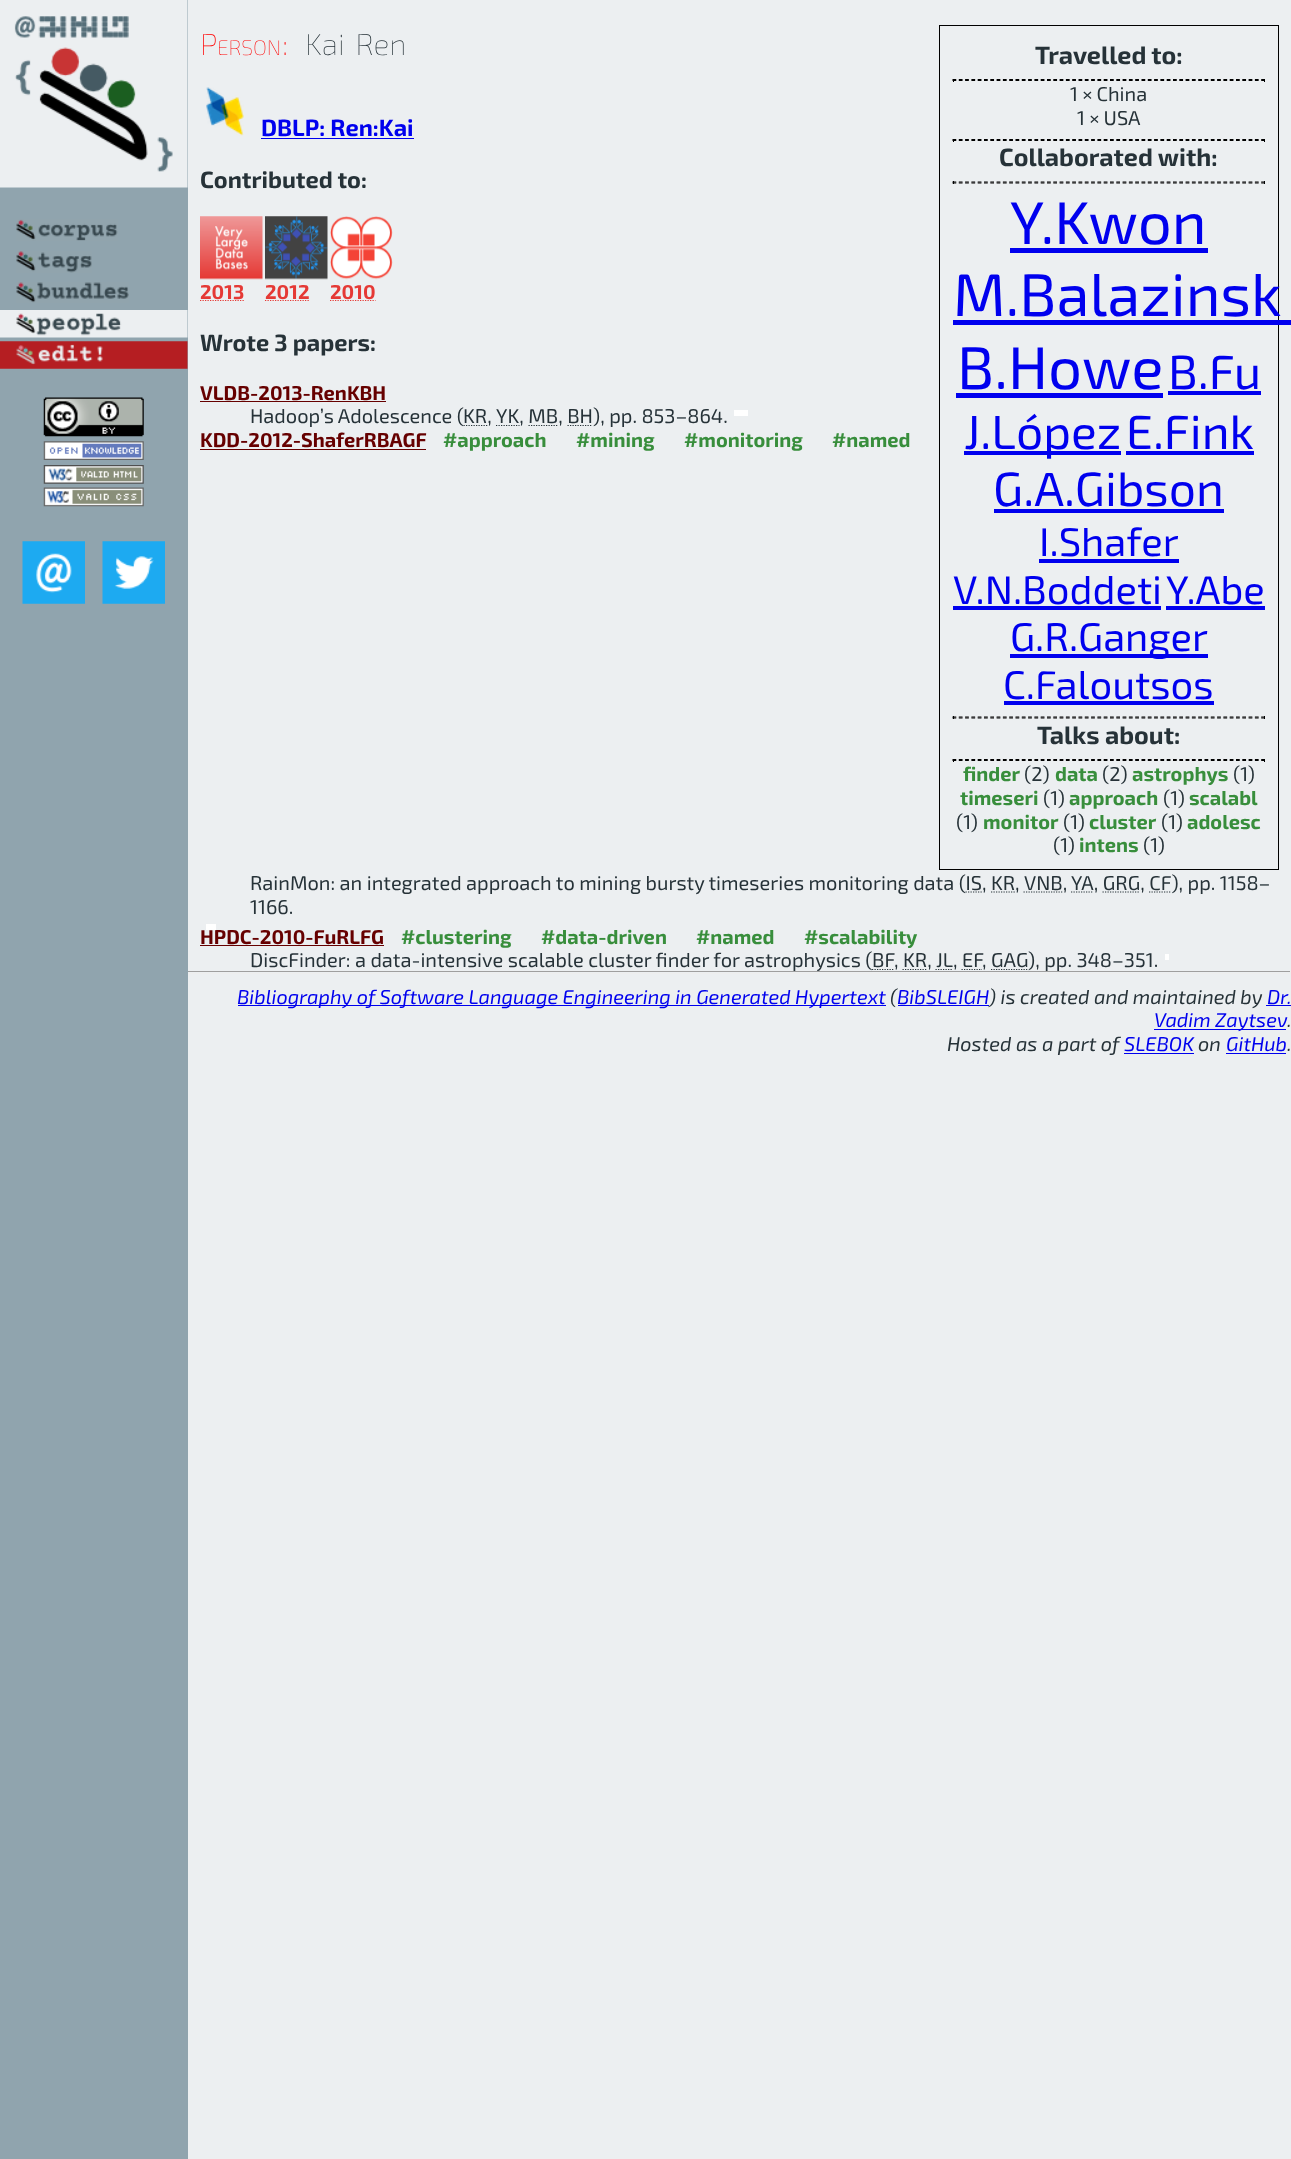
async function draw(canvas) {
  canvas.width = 1291
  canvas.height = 2159
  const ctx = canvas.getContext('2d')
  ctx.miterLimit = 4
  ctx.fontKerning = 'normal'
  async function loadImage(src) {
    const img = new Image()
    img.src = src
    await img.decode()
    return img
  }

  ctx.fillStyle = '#eceff1'
  ctx.fillRect(0, 0, 1291, 2159)
  ctx.fillStyle = '#90a4ae'
  ctx.fillRect(0, 0, 188, 2159)
  ctx.drawImage(await loadImage('image0.png'), 0, 0, 188, 188)
  ctx.drawImage(await loadImage('image1.png'), 16, 219, 102, 22)
  ctx.drawImage(await loadImage('image2.png'), 16, 251, 76, 22)
  ctx.drawImage(await loadImage('image3.png'), 16, 282, 113, 21)
  ctx.drawImage(await loadImage('image4.png'), 0, 310, 188, 28)
  ctx.drawImage(await loadImage('image5.png'), 0, 341, 188, 28)
  ctx.drawImage(await loadImage('image6.png'), 43, 397, 101, 40)
  ctx.drawImage(await loadImage('image7.png'), 43, 441, 101, 19)
  ctx.drawImage(await loadImage('image8.png'), 43, 465, 101, 19)
  ctx.drawImage(await loadImage('image9.png'), 43, 487, 101, 20)
  ctx.drawImage(await loadImage('image10.png'), 22, 541, 63, 63)
  ctx.drawImage(await loadImage('image11.png'), 102, 541, 63, 63)
  ctx.font = '100 30px "Exo 2"'
  ctx.fillStyle = '#f00'
  ctx.fillText('P', 200, 55)
  ctx.font = '100 21px "Exo 2"'
  ctx.fillText('ERSON', 217, 55)
  ctx.font = '100 30px "Exo 2"'
  ctx.fillText(':', 282, 55)
  ctx.wordSpacing = '4px'
  ctx.fillStyle = '#263238'
  ctx.fillText('Kai Ren', 305, 55)
  ctx.strokeStyle = '#000'
  ctx.strokeRect(939.5, 25.5, 339, 844)
  ctx.wordSpacing = '0px'
  ctx.font = 'bold 25px "Exo 2"'
  ctx.fillText('Travelled to:', 1035, 64)
  ctx.beginPath()
  ctx.moveTo(952.5, 79.5)
  ctx.lineTo(1265, 79.5)
  ctx.lineWidth = 1.2
  ctx.setLineDash([3.75, 2.55])
  ctx.stroke()
  ctx.fillStyle = '#000'
  ctx.fillRect(1264, 79, 1, 3)
  ctx.beginPath()
  ctx.moveTo(952.5, 80.5)
  ctx.lineTo(1265, 80.5)
  ctx.stroke()
  ctx.fillRect(953, 79, 1, 3)
  ctx.font = '20px "Exo 2"'
  ctx.fillStyle = '#263238'
  ctx.fillText('1 × China', 1070, 101)
  ctx.fillText('1 × USA', 1077, 125)
  ctx.beginPath()
  ctx.moveTo(952.5, 139.5)
  ctx.lineTo(1265, 139.5)
  ctx.stroke()
  ctx.fillStyle = '#000'
  ctx.fillRect(1264, 139, 1, 3)
  ctx.beginPath()
  ctx.moveTo(952.5, 140.5)
  ctx.lineTo(1265, 140.5)
  ctx.stroke()
  ctx.fillRect(953, 139, 1, 3)
  ctx.font = 'bold 25px "Exo 2"'
  ctx.fillStyle = '#263238'
  ctx.fillText('Collaborated with:', 999, 166)
  ctx.beginPath()
  ctx.moveTo(952.5, 182)
  ctx.lineTo(1265, 182)
  ctx.stroke()
  ctx.fillStyle = '#000'
  ctx.fillRect(1264, 181, 1, 3)
  ctx.beginPath()
  ctx.moveTo(952.5, 183)
  ctx.lineTo(1265, 183)
  ctx.stroke()
  ctx.fillRect(953, 181, 1, 3)
  ctx.font = '60px "Exo 2"'
  ctx.fillStyle = '#00e'
  ctx.fillText('Y.Kwon', 1010, 244)
  ctx.fillRect(1010, 248, 198, 5)
  ctx.fillText('M.Balazinsk', 953, 316)
  ctx.fillRect(953, 320, 338, 5)
  ctx.fillText('B.Howe', 957, 389)
  ctx.fillRect(956, 393, 207, 5)
  ctx.font = '48px "Exo 2"'
  ctx.fillText('B.Fu', 1168, 389)
  ctx.fillRect(1168, 391, 93, 4)
  ctx.fillRect(964, 451, 157, 4)
  ctx.fillText('J.López', 964, 449)
  ctx.fillText('E.Fink', 1126, 449)
  ctx.fillRect(1126, 451, 128, 4)
  ctx.fillText('G.A.Gibson', 993, 506)
  ctx.fillRect(994, 509, 230, 4)
  ctx.font = '40px "Exo 2"'
  ctx.fillText('I.Shafer', 1039, 556)
  ctx.fillRect(1039, 559, 140, 4)
  ctx.fillText('V.N.Boddeti', 953, 604)
  ctx.fillRect(953, 606, 208, 4)
  ctx.fillText('Y.Abe', 1166, 604)
  ctx.fillRect(1166, 606, 99, 4)
  ctx.fillRect(1010, 654, 198, 4)
  ctx.fillText('G.R.Ganger', 1010, 651)
  ctx.fillText('C.Faloutsos', 1003, 699)
  ctx.fillRect(1004, 701, 210, 4)
  ctx.beginPath()
  ctx.moveTo(952.5, 717)
  ctx.lineTo(1265, 717)
  ctx.stroke()
  ctx.fillStyle = '#000'
  ctx.fillRect(1264, 716, 1, 3)
  ctx.beginPath()
  ctx.moveTo(952.5, 718)
  ctx.lineTo(1265, 718)
  ctx.stroke()
  ctx.fillRect(953, 716, 1, 3)
  ctx.font = 'bold 25px "Exo 2"'
  ctx.fillStyle = '#263238'
  ctx.fillText('Talks about:', 1037, 744)
  ctx.beginPath()
  ctx.moveTo(952.5, 759.5)
  ctx.lineTo(1265, 759.5)
  ctx.stroke()
  ctx.fillStyle = '#000'
  ctx.fillRect(1264, 759, 1, 3)
  ctx.beginPath()
  ctx.moveTo(952.5, 760.5)
  ctx.lineTo(1265, 760.5)
  ctx.stroke()
  ctx.fillRect(953, 759, 1, 3)
  ctx.font = 'bold 20px "Exo 2"'
  ctx.fillStyle = '#388e3c'
  ctx.fillText('finder', 963, 781)
  ctx.font = '20px "Exo 2"'
  ctx.fillStyle = '#263238'
  ctx.fillText('(2)', 1024, 781)
  ctx.font = 'bold 20px "Exo 2"'
  ctx.fillStyle = '#388e3c'
  ctx.fillText('data', 1055, 781)
  ctx.font = '20px "Exo 2"'
  ctx.fillStyle = '#263238'
  ctx.fillText('(2)', 1102, 781)
  ctx.font = 'bold 20px "Exo 2"'
  ctx.fillStyle = '#388e3c'
  ctx.fillText('astrophys', 1132, 781)
  ctx.font = '20px "Exo 2"'
  ctx.fillStyle = '#263238'
  ctx.fillText('(1)', 1233, 781)
  ctx.font = 'bold 20px "Exo 2"'
  ctx.fillStyle = '#388e3c'
  ctx.fillText('timeseri', 960, 805)
  ctx.font = '20px "Exo 2"'
  ctx.fillStyle = '#263238'
  ctx.fillText('(1)', 1043, 805)
  ctx.font = 'bold 20px "Exo 2"'
  ctx.fillStyle = '#388e3c'
  ctx.fillText('approach', 1069, 805)
  ctx.font = '20px "Exo 2"'
  ctx.fillStyle = '#263238'
  ctx.fillText('(1)', 1163, 805)
  ctx.font = 'bold 20px "Exo 2"'
  ctx.fillStyle = '#388e3c'
  ctx.fillText('scalabl', 1189, 805)
  ctx.font = '20px "Exo 2"'
  ctx.fillStyle = '#263238'
  ctx.fillText('(1)', 956, 829)
  ctx.font = 'bold 20px "Exo 2"'
  ctx.fillStyle = '#388e3c'
  ctx.fillText('monitor', 983, 829)
  ctx.font = '20px "Exo 2"'
  ctx.fillStyle = '#263238'
  ctx.fillText('(1)', 1063, 829)
  ctx.font = 'bold 20px "Exo 2"'
  ctx.fillStyle = '#388e3c'
  ctx.fillText('cluster', 1089, 829)
  ctx.font = '20px "Exo 2"'
  ctx.fillStyle = '#263238'
  ctx.fillText('(1)', 1161, 829)
  ctx.font = 'bold 20px "Exo 2"'
  ctx.fillStyle = '#388e3c'
  ctx.fillText('adolesc', 1187, 829)
  ctx.font = '20px "Exo 2"'
  ctx.fillStyle = '#263238'
  ctx.fillText('(1)', 1053, 852)
  ctx.font = 'bold 20px "Exo 2"'
  ctx.fillStyle = '#388e3c'
  ctx.fillText('intens', 1079, 852)
  ctx.font = '20px "Exo 2"'
  ctx.fillStyle = '#263238'
  ctx.fillText('(1)', 1143, 852)
  ctx.drawImage(await loadImage('image12.png'), 206, 87, 38, 49)
  ctx.font = 'bold 23.5px "Exo 2"'
  ctx.fillStyle = '#00e'
  ctx.fillText('DBLP: Ren:Kai', 261, 136)
  ctx.fillRect(261, 138, 153, 1)
  ctx.fillStyle = '#263238'
  ctx.fillText('Contributed to:', 200, 188)
  ctx.drawImage(await loadImage('image13.png'), 200, 216, 63, 64)
  ctx.beginPath()
  ctx.moveTo(200, 300.5)
  ctx.lineTo(244, 300.5)
  ctx.strokeStyle = '#e53935'
  ctx.setLineDash([1.25, 1.25])
  ctx.stroke()
  ctx.font = 'bold 20px "Exo 2"'
  ctx.fillStyle = '#e53935'
  ctx.fillText('2013', 200, 299)
  ctx.drawImage(await loadImage('image14.png'), 265, 216, 63, 64)
  ctx.beginPath()
  ctx.moveTo(265, 300.5)
  ctx.lineTo(309.5, 300.5)
  ctx.stroke()
  ctx.fillText('2012', 265, 299)
  ctx.drawImage(await loadImage('image15.png'), 330, 216, 63, 64)
  ctx.beginPath()
  ctx.moveTo(330, 300.5)
  ctx.lineTo(375.5, 300.5)
  ctx.stroke()
  ctx.fillText('2010', 330, 299)
  ctx.font = 'bold 23.5px "Exo 2"'
  ctx.fillStyle = '#263238'
  ctx.fillText('Wrote 3 papers:', 200, 351)
  ctx.font = 'bold 20px "Exo 2"'
  ctx.fillStyle = '#600'
  ctx.fillText('VLDB-2013-RenKBH', 200, 400)
  ctx.fillRect(200, 401, 186, 1)
  ctx.font = '20px "Exo 2"'
  ctx.fillStyle = '#263238'
  ctx.fillText('Hadoop’s Adolescence (', 250, 423)
  ctx.beginPath()
  ctx.moveTo(463.5, 425.5)
  ctx.lineTo(487.5, 425.5)
  ctx.strokeStyle = '#263238'
  ctx.stroke()
  ctx.fillText('KR,', 463, 423)
  ctx.beginPath()
  ctx.moveTo(496, 425.5)
  ctx.lineTo(519.5, 425.5)
  ctx.stroke()
  ctx.fillText('YK, MB, BH', 496, 423)
  ctx.fillText('), pp. 853–864.', 593, 423)
  ctx.beginPath()
  ctx.moveTo(528.5, 425.5)
  ctx.lineTo(558.5, 425.5)
  ctx.stroke()
  ctx.beginPath()
  ctx.moveTo(567.5, 425.5)
  ctx.lineTo(592.5, 425.5)
  ctx.stroke()
  ctx.fillStyle = '#fff'
  ctx.fillRect(734, 410, 14, 6)
  ctx.font = 'bold 20px "Exo 2"'
  ctx.fillStyle = '#600'
  ctx.fillText('KDD-2012-ShaferRBAGF', 200, 447)
  ctx.fillRect(200, 449, 226, 1)
  ctx.fillStyle = '#388e3c'
  ctx.fillText('#approach', 443, 447)
  ctx.fillText('#mining', 576, 447)
  ctx.fillText('#monitoring', 684, 447)
  ctx.fillText('#named', 832, 447)
  ctx.font = '20px "Exo 2"'
  ctx.fillStyle = '#263238'
  ctx.fillText('RainMon: an integrated approach to mining bursty timeseries monitoring data (IS, KR,', 250, 890)
  ctx.beginPath()
  ctx.moveTo(1023.5, 892)
  ctx.lineTo(1062.5, 892)
  ctx.stroke()
  ctx.fillText('VNB,', 1024, 890)
  ctx.beginPath()
  ctx.moveTo(1071, 892)
  ctx.lineTo(1093.5, 892)
  ctx.stroke()
  ctx.fillText('YA, GRG, CF), pp. 1158–', 1071, 890)
  ctx.beginPath()
  ctx.moveTo(965.5, 892)
  ctx.lineTo(982, 892)
  ctx.moveTo(991, 892)
  ctx.lineTo(1015, 892)
  ctx.stroke()
  ctx.beginPath()
  ctx.moveTo(1102.5, 892)
  ctx.lineTo(1140, 892)
  ctx.stroke()
  ctx.beginPath()
  ctx.moveTo(1149, 892)
  ctx.lineTo(1171.5, 892)
  ctx.stroke()
  ctx.fillText('1166.', 250, 914)
  ctx.font = 'bold 20px "Exo 2"'
  ctx.fillStyle = '#600'
  ctx.fillText('HPDC-2010-FuRLFG', 200, 944)
  ctx.fillStyle = '#fff'
  ctx.fillRect(206, 924, 10, 6)
  ctx.fillStyle = '#600'
  ctx.fillRect(200, 945, 184, 1)
  ctx.fillStyle = '#388e3c'
  ctx.fillText('#clustering', 401, 944)
  ctx.fillText('#data-driven', 541, 944)
  ctx.fillText('#named', 696, 944)
  ctx.fillText('#scalability', 804, 944)
  ctx.font = '20px "Exo 2"'
  ctx.fillStyle = '#263238'
  ctx.fillText('DiscFinder: a data-intensive scalable cluster finder for astrophysics (BF', 250, 967)
  ctx.fillText(', KR,', 894, 967)
  ctx.beginPath()
  ctx.moveTo(902.5, 969.5)
  ctx.lineTo(927, 969.5)
  ctx.moveTo(935.5, 969.5)
  ctx.lineTo(952.5, 969.5)
  ctx.stroke()
  ctx.fillText('JL, EF', 936, 967)
  ctx.fillText(', GAG', 982, 967)
  ctx.fillText('), pp. 348–351.', 1028, 967)
  ctx.beginPath()
  ctx.moveTo(872, 969.5)
  ctx.lineTo(893.5, 969.5)
  ctx.stroke()
  ctx.beginPath()
  ctx.moveTo(961.5, 969.5)
  ctx.lineTo(982, 969.5)
  ctx.stroke()
  ctx.beginPath()
  ctx.moveTo(991, 969.5)
  ctx.lineTo(1028, 969.5)
  ctx.stroke()
  ctx.fillStyle = '#fff'
  ctx.fillRect(1165, 954, 4, 6)
  ctx.fillStyle = '#9f9f9f'
  ctx.fillRect(188, 971, 1103, 1)
  ctx.fillStyle = '#eee'
  ctx.fillRect(1290, 971, 1, 3)
  ctx.fillRect(188, 973, 1103, 1)
  ctx.fillStyle = '#00e'
  ctx.fillRect(238, 1005, 648, 1)
  ctx.font = 'italic 20px "Exo 2"'
  ctx.fillText('Bibliography of Software Language Engineering in Generated Hypertext', 237, 1004)
  ctx.fillStyle = '#263238'
  ctx.fillText('(', 890, 1004)
  ctx.fillStyle = '#00e'
  ctx.fillText('BibSLEIGH', 897, 1004)
  ctx.fillRect(898, 1005, 91, 1)
  ctx.fillStyle = '#263238'
  ctx.fillText(') is created and maintained by', 989, 1004)
  ctx.fillStyle = '#00e'
  ctx.fillText('Dr.', 1267, 1004)
  ctx.fillRect(1266, 1005, 25, 1)
  ctx.fillRect(1154, 1029, 132, 1)
  ctx.fillText('Vadim Zaytsev', 1154, 1027)
  ctx.fillStyle = '#263238'
  ctx.fillText('.', 1287, 1027)
  ctx.fillText('Hosted as a part of', 947, 1051)
  ctx.fillStyle = '#00e'
  ctx.fillRect(1124, 1053, 70, 1)
  ctx.fillText('SLEBOK', 1124, 1051)
  ctx.fillStyle = '#263238'
  ctx.fillText('on', 1198, 1051)
  ctx.fillStyle = '#00e'
  ctx.fillText('GitHub', 1226, 1051)
  ctx.fillStyle = '#263238'
  ctx.fillText('.', 1287, 1051)
  ctx.fillStyle = '#00e'
  ctx.fillRect(1226, 1053, 60, 1)
}

draw(document.querySelector('canvas'))
